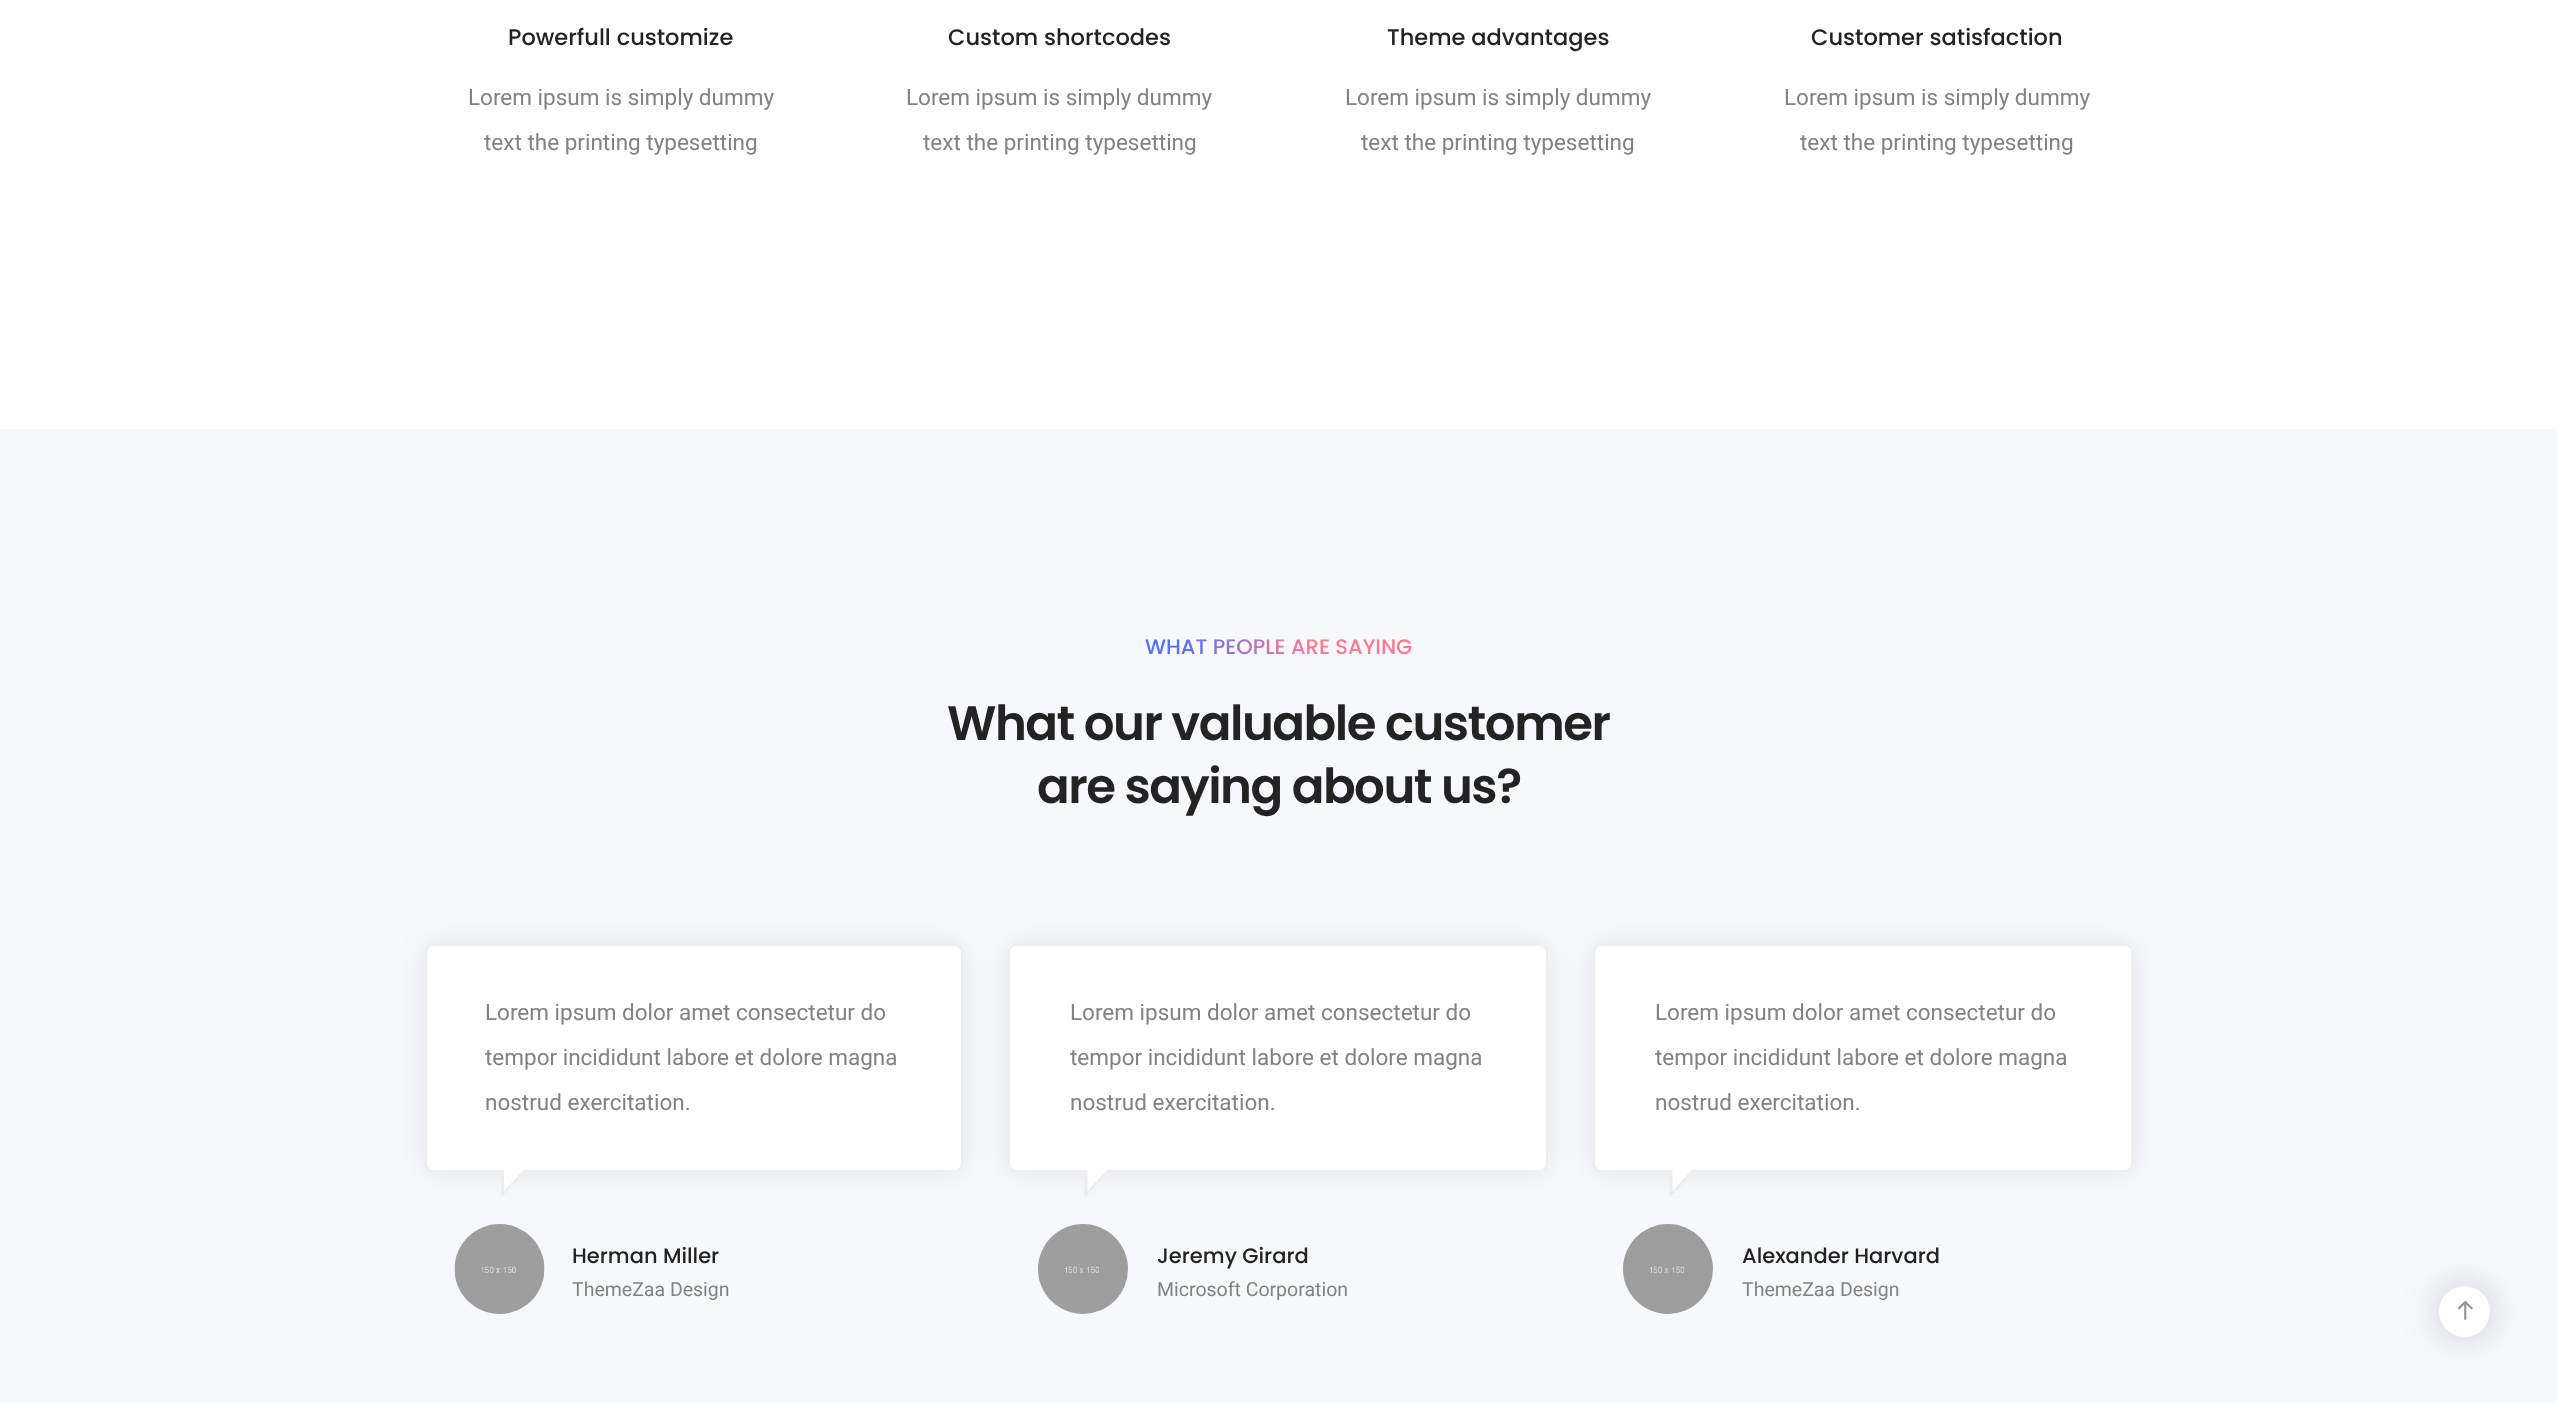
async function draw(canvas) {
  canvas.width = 2557
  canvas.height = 1403
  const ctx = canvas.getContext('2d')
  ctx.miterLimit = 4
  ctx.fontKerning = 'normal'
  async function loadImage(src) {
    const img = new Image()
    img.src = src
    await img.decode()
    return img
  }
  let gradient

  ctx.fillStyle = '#fff'
  ctx.fillRect(0, 0, 2557, 1403)
  ctx.font = '500 22.5px Poppins'
  ctx.fillStyle = '#232323'
  ctx.fillText('Powerfull customize', 508, 45)
  ctx.font = '22.5px Roboto'
  ctx.fillStyle = '#828282'
  ctx.fillText('Lorem ipsum is simply dummy', 468, 105)
  ctx.fillText('text the printing typesetting', 484, 150)
  ctx.font = '500 22.5px Poppins'
  ctx.fillStyle = '#232323'
  ctx.fillText('Custom shortcodes', 948, 45)
  ctx.font = '22.5px Roboto'
  ctx.fillStyle = '#828282'
  ctx.fillText('Lorem ipsum is simply dummy', 906, 105)
  ctx.fillText('text the printing typesetting', 923, 150)
  ctx.font = '500 22.5px Poppins'
  ctx.fillStyle = '#232323'
  ctx.fillText('Theme advantages', 1387, 45)
  ctx.font = '22.5px Roboto'
  ctx.fillStyle = '#828282'
  ctx.fillText('Lorem ipsum is simply dummy', 1345, 105)
  ctx.fillText('text the printing typesetting', 1361, 150)
  ctx.font = '500 22.5px Poppins'
  ctx.fillStyle = '#232323'
  ctx.fillText('Customer satisfaction', 1811, 45)
  ctx.font = '22.5px Roboto'
  ctx.fillStyle = '#828282'
  ctx.fillText('Lorem ipsum is simply dummy', 1784, 105)
  ctx.fillText('text the printing typesetting', 1800, 150)
  ctx.fillStyle = '#f7f8fc'
  ctx.fillRect(0, 429, 2557, 974)
  ctx.font = '500 21px Poppins'
  gradient = ctx.createLinearGradient(1145, 647, 1412, 647)
  gradient.addColorStop(0.15, '#556fff')
  gradient.addColorStop(0.61, '#ff798e')
  ctx.fillStyle = gradient
  ctx.fillText('WHAT PEOPLE ARE SAYING', 1145, 654)
  ctx.letterSpacing = '-1.5px'
  ctx.font = '600 48.25px Poppins'
  ctx.fillStyle = '#232323'
  ctx.fillText('What our valuable customer', 947, 740)
  ctx.fillText('are saying about us?', 1037, 803)
  ctx.fillStyle = '#00000014'
  ctx.filter = 'blur(15px)'
  ctx.beginPath()
  ctx.roundRect(425, 944, 538, 228, 8)
  ctx.fill()
  ctx.filter = 'none'
  ctx.fillStyle = '#fff'
  ctx.beginPath()
  ctx.roundRect(426, 945, 536, 226, 7)
  ctx.fill()
  ctx.strokeStyle = '#ededed'
  ctx.lineWidth = 2
  ctx.stroke()
  ctx.letterSpacing = '0px'
  ctx.font = '22.5px Roboto'
  ctx.fillStyle = '#828282'
  ctx.fillText('Lorem ipsum dolor amet consectetur do', 485, 1020)
  ctx.fillText('tempor incididunt labore et dolore magna', 485, 1065)
  ctx.fillText('nostrud exercitation.', 485, 1110)
  ctx.fillStyle = '#ededed'
  ctx.beginPath()
  ctx.moveTo(501, 1170)
  ctx.lineTo(528, 1170)
  ctx.lineTo(501, 1197)
  ctx.closePath()
  ctx.fill()
  ctx.fillStyle = '#fff'
  ctx.beginPath()
  ctx.moveTo(504, 1170)
  ctx.lineTo(523.5, 1170)
  ctx.lineTo(504, 1191)
  ctx.closePath()
  ctx.fill()
  ctx.drawImage(await loadImage('image0.png'), 454, 1224, 91, 90)
  ctx.font = '500 21px Poppins'
  ctx.fillStyle = '#232323'
  ctx.fillText('Herman Miller', 572, 1263)
  ctx.font = '19.5px Roboto'
  ctx.fillStyle = '#828282'
  ctx.fillText('ThemeZaa Design', 572, 1296)
  ctx.fillStyle = '#00000014'
  ctx.filter = 'blur(15px)'
  ctx.beginPath()
  ctx.roundRect(1008, 944, 540, 228, 8)
  ctx.fill()
  ctx.filter = 'none'
  ctx.fillStyle = '#fff'
  ctx.beginPath()
  ctx.roundRect(1009, 945, 538, 226, 7)
  ctx.fill()
  ctx.stroke()
  ctx.font = '22.5px Roboto'
  ctx.fillStyle = '#828282'
  ctx.fillText('Lorem ipsum dolor amet consectetur do', 1070, 1020)
  ctx.fillText('tempor incididunt labore et dolore magna', 1070, 1065)
  ctx.fillText('nostrud exercitation.', 1070, 1110)
  ctx.fillStyle = '#ededed'
  ctx.beginPath()
  ctx.moveTo(1084.5, 1170)
  ctx.lineTo(1111.5, 1170)
  ctx.lineTo(1084.5, 1197)
  ctx.closePath()
  ctx.fill()
  ctx.fillStyle = '#fff'
  ctx.beginPath()
  ctx.moveTo(1087.5, 1170)
  ctx.lineTo(1107, 1170)
  ctx.lineTo(1087.5, 1191)
  ctx.closePath()
  ctx.fill()
  ctx.drawImage(await loadImage('image1.png'), 1038, 1224, 90, 90)
  ctx.font = '500 21px Poppins'
  ctx.fillStyle = '#232323'
  ctx.fillText('Jeremy Girard', 1157, 1263)
  ctx.font = '19.5px Roboto'
  ctx.fillStyle = '#828282'
  ctx.fillText('Microsoft Corporation', 1157, 1296)
  ctx.fillStyle = '#00000014'
  ctx.filter = 'blur(15px)'
  ctx.beginPath()
  ctx.roundRect(1593, 944, 540, 228, 8)
  ctx.fill()
  ctx.filter = 'none'
  ctx.fillStyle = '#fff'
  ctx.beginPath()
  ctx.roundRect(1594, 945, 538, 226, 7)
  ctx.fill()
  ctx.stroke()
  ctx.font = '22.5px Roboto'
  ctx.fillStyle = '#828282'
  ctx.fillText('Lorem ipsum dolor amet consectetur do', 1655, 1020)
  ctx.fillText('tempor incididunt labore et dolore magna', 1655, 1065)
  ctx.fillText('nostrud exercitation.', 1655, 1110)
  ctx.fillStyle = '#ededed'
  ctx.beginPath()
  ctx.moveTo(1669.5, 1170)
  ctx.lineTo(1696.5, 1170)
  ctx.lineTo(1669.5, 1197)
  ctx.closePath()
  ctx.fill()
  ctx.fillStyle = '#fff'
  ctx.beginPath()
  ctx.moveTo(1672.5, 1170)
  ctx.lineTo(1692, 1170)
  ctx.lineTo(1672.5, 1191)
  ctx.closePath()
  ctx.fill()
  ctx.drawImage(await loadImage('image2.png'), 1623, 1224, 90, 90)
  ctx.font = '500 21px Poppins'
  ctx.fillStyle = '#232323'
  ctx.fillText('Alexander Harvard', 1742, 1263)
  ctx.font = '19.5px Roboto'
  ctx.fillStyle = '#828282'
  ctx.fillText('ThemeZaa Design', 1742, 1296)
  ctx.fillStyle = '#36373740'
  ctx.filter = 'blur(19px)'
  ctx.beginPath()
  ctx.roundRect(2439, 1286, 51, 51, 25.5)
  ctx.fill()
  ctx.filter = 'none'
  ctx.fillStyle = '#fefeff'
  ctx.beginPath()
  ctx.arc(2464.5, 1311.5, 25.5, 0, 2 * Math.PI)
  ctx.fill()
  ctx.drawImage(await loadImage('image3.png'), 2457, 1300, 16, 20)
}

draw(document.querySelector('canvas'))
